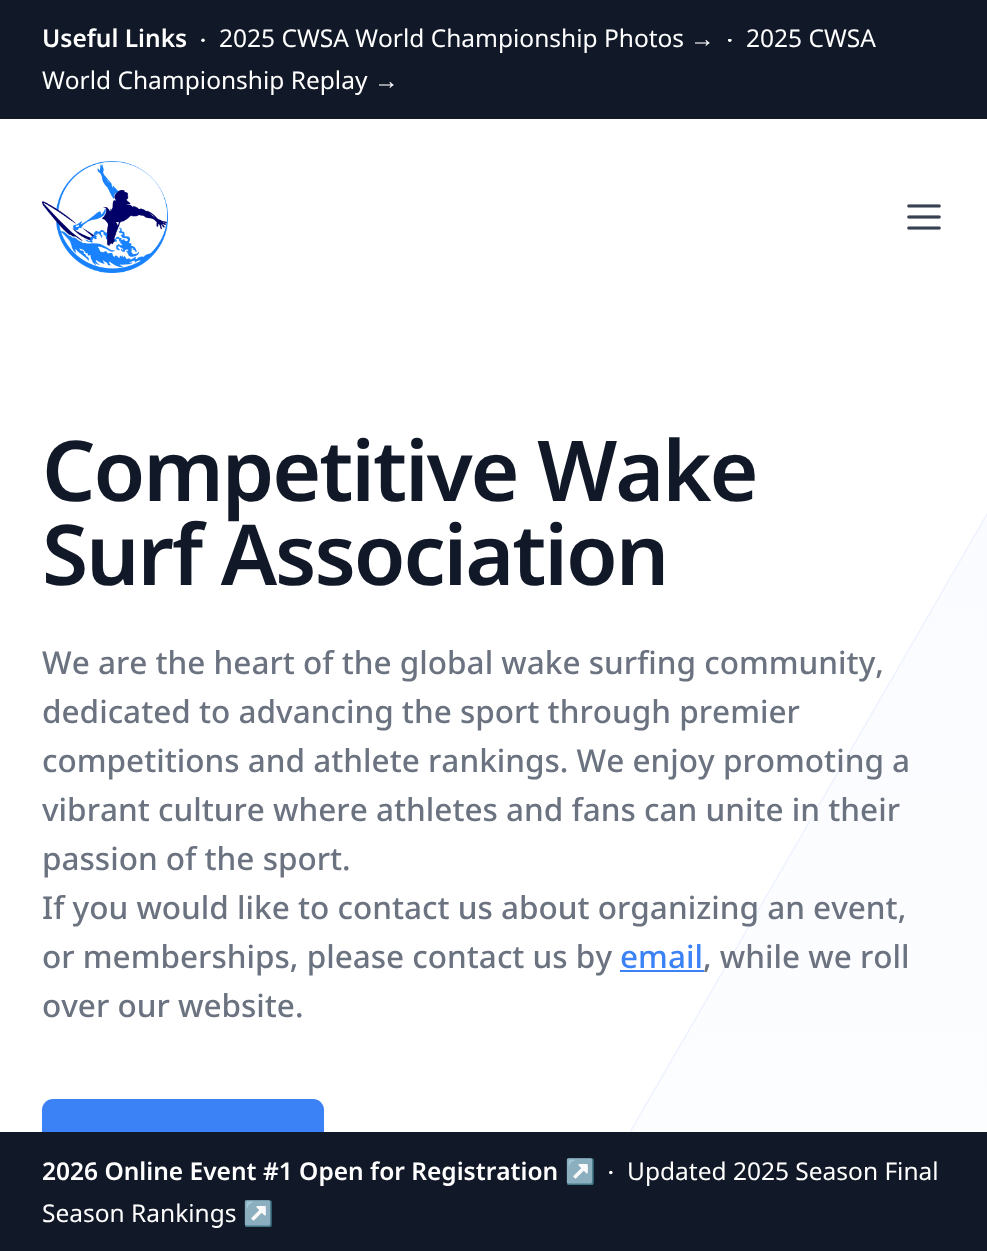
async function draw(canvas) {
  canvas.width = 987
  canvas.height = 1251
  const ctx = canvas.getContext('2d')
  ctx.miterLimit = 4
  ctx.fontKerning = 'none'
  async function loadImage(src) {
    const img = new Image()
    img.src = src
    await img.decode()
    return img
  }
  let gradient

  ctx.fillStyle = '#fff'
  ctx.fillRect(0, 0, 987, 1251)
  ctx.fillStyle = '#111827'
  ctx.fillRect(0, 0, 987, 119)
  ctx.font = '600 24.5px Noto Sans'
  ctx.fillStyle = '#fff'
  ctx.fillText('Useful Links', 42, 47)
  ctx.font = '24.5px Noto Sans'
  ctx.fillText('2025 CWSA World Championship Photos', 219, 47)
  ctx.beginPath()
  ctx.arc(203, 40.2, 1.8, 0, 2 * Math.PI)
  ctx.fill()
  ctx.font = '24.5px Liberation Sans'
  ctx.fillText('→', 690, 47)
  ctx.font = '24.5px Noto Sans'
  ctx.fillText('2025 CWSA', 746, 47)
  ctx.save()
  ctx.beginPath()
  ctx.rect(728, 39, 4, 4)
  ctx.clip()
  ctx.beginPath()
  ctx.arc(729.8, 40.2, 1.8, 0, 2 * Math.PI)
  ctx.fill()
  ctx.restore()
  ctx.fillText('World Championship Replay', 42, 89)
  ctx.font = '24.5px Liberation Sans'
  ctx.fillText('→', 374, 89)
  gradient = ctx.createLinearGradient(493, 203, 494, 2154)
  gradient.addColorStop(0, '#fafbff')
  gradient.addColorStop(1, '#fff')
  ctx.fillStyle = gradient
  ctx.fillRect(629, 513, 358, 619)
  ctx.save()
  ctx.beginPath()
  ctx.rect(0, 203, 987, 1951)
  ctx.clip()
  ctx.beginPath()
  ctx.moveTo(-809, 202)
  ctx.lineTo(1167, 202)
  ctx.lineTo(39.5, 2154.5)
  ctx.lineTo(-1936, 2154.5)
  ctx.closePath()
  ctx.strokeStyle = '#eef2ff'
  ctx.lineWidth = 1.8
  ctx.stroke()
  ctx.restore()
  ctx.fillStyle = '#fff'
  ctx.beginPath()
  ctx.moveTo(-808, 203)
  ctx.lineTo(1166, 203)
  ctx.lineTo(39, 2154)
  ctx.lineTo(-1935, 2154)
  ctx.closePath()
  ctx.fill()
  ctx.drawImage(await loadImage('image0.png'), 42, 161, 126, 112)
  ctx.drawImage(await loadImage('image1.png'), 907, 204, 34, 26)
  ctx.letterSpacing = '-2.1px'
  ctx.font = '600 84px Noto Sans'
  ctx.fillStyle = '#111827'
  ctx.fillText('Competitive Wake', 42, 501)
  ctx.fillText('Surf Association', 42, 585)
  ctx.letterSpacing = '0px'
  ctx.font = '500 31.5px Noto Sans'
  ctx.fillStyle = '#6b7280'
  ctx.fillText('We are the heart of the global wake surfing community,', 42, 674)
  ctx.fillText('dedicated to advancing the sport through premier', 42, 723)
  ctx.fillText('competitions and athlete rankings. We enjoy promoting a', 42, 772)
  ctx.fillText('vibrant culture where athletes and fans can unite in their', 42, 821)
  ctx.fillText('passion of the sport.', 42, 870)
  ctx.fillText('If you would like to contact us about organizing an event,', 42, 919)
  ctx.fillText('or memberships, please contact us by', 42, 968)
  ctx.fillStyle = '#3b82f6'
  ctx.fillText('email', 620, 968)
  ctx.fillRect(620, 970, 84, 2)
  ctx.fillStyle = '#6b7280'
  ctx.fillText(', while we roll', 703, 968)
  ctx.fillText('over our website.', 42, 1017)
  ctx.fillStyle = '#3b82f6'
  ctx.beginPath()
  ctx.roundRect(42, 1099, 282, 70, 11)
  ctx.fill()
  ctx.fillStyle = '#111827'
  ctx.fillRect(0, 1132, 987, 119)
  ctx.font = '600 24.5px Noto Sans'
  ctx.fillStyle = '#fff'
  ctx.fillText('2026 Online Event #1 Open for Registration', 42, 1180)
  ctx.font = '24.5px Noto Color Emoji'
  ctx.fillText('↗', 565, 1180)
  ctx.beginPath()
  ctx.arc(610.8, 1172.5, 1.8, 0, 2 * Math.PI)
  ctx.fill()
  ctx.font = '24.5px Noto Sans'
  ctx.fillText('Updated 2025 Season Final', 627, 1180)
  ctx.fillText('Season Rankings', 42, 1222)
  ctx.font = '24.5px Noto Color Emoji'
  ctx.fillText('↗', 243, 1222)
}

draw(document.querySelector('canvas'))
